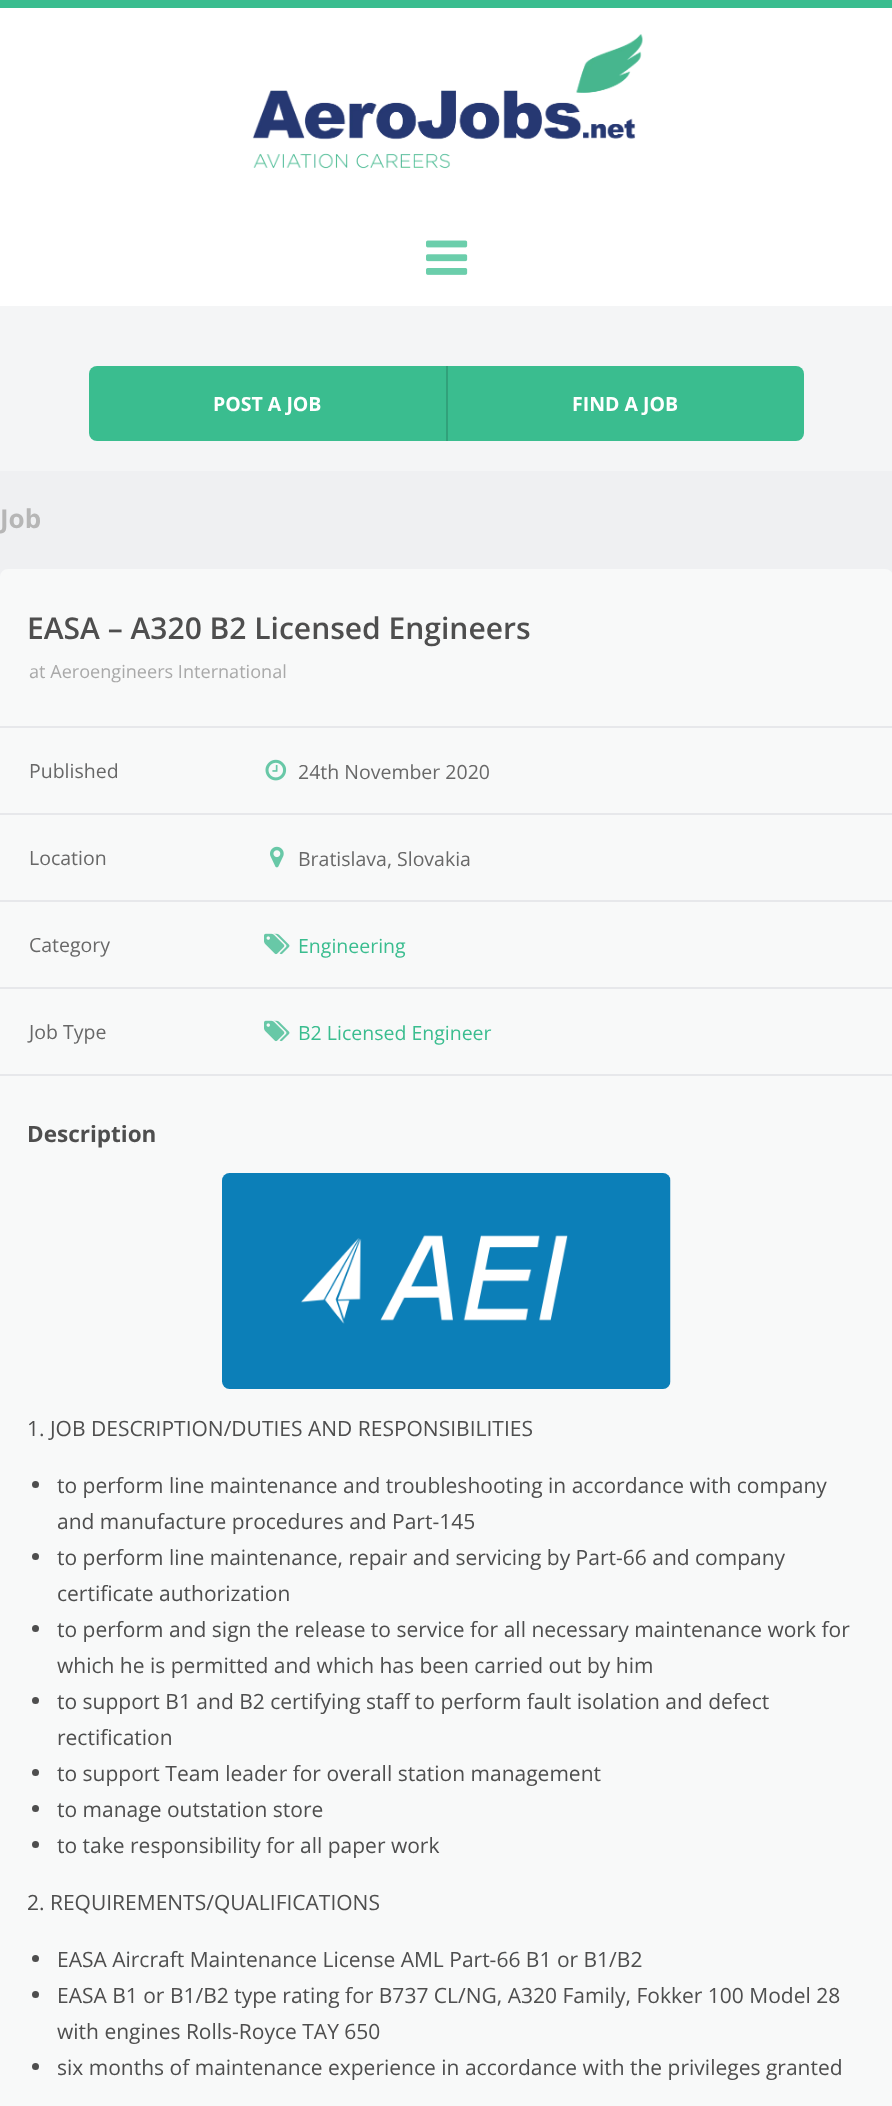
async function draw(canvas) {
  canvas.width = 892
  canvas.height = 2106
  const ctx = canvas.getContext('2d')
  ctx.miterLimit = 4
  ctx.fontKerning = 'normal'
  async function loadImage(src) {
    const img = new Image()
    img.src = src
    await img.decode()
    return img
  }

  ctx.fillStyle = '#eff0f2'
  ctx.fillRect(0, 0, 892, 2106)
  ctx.fillStyle = '#3abd8f'
  ctx.fillRect(0, 0, 892, 8)
  ctx.fillStyle = '#fff'
  ctx.fillRect(0, 8, 892, 298)
  ctx.drawImage(await loadImage('image0.png'), 252, 34, 391, 135)
  ctx.drawImage(await loadImage('image1.png'), 426, 240, 42, 35)
  ctx.fillStyle = '#f4f5f6'
  ctx.fillRect(0, 306, 892, 165)
  ctx.fillStyle = '#3abd8f'
  ctx.beginPath()
  ctx.roundRect(89, 366, 357, 75, [8, 0, 0, 8])
  ctx.fill()
  ctx.font = 'bold 19.5px Open Sans'
  ctx.fillStyle = '#fff'
  ctx.fillText('POST A JOB', 213, 411)
  ctx.fillStyle = '#3abd8f'
  ctx.beginPath()
  ctx.roundRect(446, 366, 358, 75, [0, 8, 8, 0])
  ctx.fill()
  ctx.fillStyle = '#31a17a'
  ctx.fillRect(446, 366, 2, 75)
  ctx.fillStyle = '#fff'
  ctx.fillText('FIND A JOB', 572, 411)
  ctx.font = 'bold 26px Open Sans'
  ctx.fillStyle = '#b6b6b6'
  ctx.fillText('Job', 0, 528)
  ctx.fillStyle = '#f8f9f9'
  ctx.beginPath()
  ctx.roundRect(0, 569, 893, 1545, 8)
  ctx.fill()
  ctx.font = '600 30px Open Sans'
  ctx.fillStyle = '#4e4e4e'
  ctx.fillText('EASA – A320 B2 Licensed Engineers', 27, 639)
  ctx.fillStyle = '#e7e8eb'
  ctx.fillRect(0, 726, 892, 2)
  ctx.font = '18.1px Open Sans'
  ctx.fillStyle = '#a9a9a9'
  ctx.fillText('at Aeroengineers International', 29, 678)
  ctx.fillStyle = '#e7e8eb'
  ctx.fillRect(0, 813, 892, 2)
  ctx.font = '19.5px Open Sans'
  ctx.fillStyle = '#686868'
  ctx.fillText('Published', 29, 778)
  ctx.drawImage(await loadImage('image2.png'), 265, 759, 22, 22)
  ctx.fillText('24th November 2020', 298, 779)
  ctx.fillStyle = '#e7e8eb'
  ctx.fillRect(0, 900, 892, 2)
  ctx.fillStyle = '#686868'
  ctx.fillText('Location', 29, 865)
  ctx.drawImage(await loadImage('image3.png'), 270, 846, 14, 22)
  ctx.fillText('Bratislava, Slovakia', 298, 866)
  ctx.fillStyle = '#e7e8eb'
  ctx.fillRect(0, 987, 892, 2)
  ctx.fillStyle = '#686868'
  ctx.fillText('Category', 29, 952)
  ctx.drawImage(await loadImage('image4.png'), 264, 933, 26, 22)
  ctx.fillStyle = '#3abd8f'
  ctx.fillText('Engineering', 298, 953)
  ctx.fillStyle = '#e7e8eb'
  ctx.fillRect(0, 1074, 892, 2)
  ctx.fillStyle = '#686868'
  ctx.fillText('Job Type', 29, 1039)
  ctx.drawImage(await loadImage('image4.png'), 264, 1020, 26, 22)
  ctx.fillStyle = '#3abd8f'
  ctx.fillText('B2 Licensed Engineer', 298, 1040)
  ctx.font = 'bold 22.5px Open Sans'
  ctx.fillStyle = '#4e4e4e'
  ctx.fillText('Description', 27, 1142)
  ctx.drawImage(await loadImage('image5.png'), 222, 1173, 449, 216)
  ctx.font = '21px Open Sans'
  ctx.fillText('1. JOB DESCRIPTION/DUTIES AND RESPONSIBILITIES', 27, 1436)
  ctx.beginPath()
  ctx.arc(35.5, 1484.5, 3.5, 0, 2 * Math.PI)
  ctx.fill()
  ctx.fillText('to perform line maintenance and troubleshooting in accordance with company', 57, 1493)
  ctx.fillText('and manufacture procedures and Part-145', 57, 1529)
  ctx.beginPath()
  ctx.arc(35.5, 1556.5, 3.5, 0, 2 * Math.PI)
  ctx.fill()
  ctx.fillText('to perform line maintenance, repair and servicing by Part-66 and company', 57, 1565)
  ctx.fillText('certificate authorization', 57, 1601)
  ctx.beginPath()
  ctx.arc(35.5, 1628.5, 3.5, 0, 2 * Math.PI)
  ctx.fill()
  ctx.fillText('to perform and sign the release to service for all necessary maintenance work for', 57, 1637)
  ctx.fillText('which he is permitted and which has been carried out by him', 57, 1673)
  ctx.beginPath()
  ctx.arc(35.5, 1700.5, 3.5, 0, 2 * Math.PI)
  ctx.fill()
  ctx.fillText('to support B1 and B2 certifying staff to perform fault isolation and defect', 57, 1709)
  ctx.fillText('rectification', 57, 1745)
  ctx.beginPath()
  ctx.arc(35.5, 1772.5, 3.5, 0, 2 * Math.PI)
  ctx.fill()
  ctx.fillText('to support Team leader for overall station management', 57, 1781)
  ctx.beginPath()
  ctx.arc(35.5, 1808.5, 3.5, 0, 2 * Math.PI)
  ctx.fill()
  ctx.fillText('to manage outstation store', 57, 1817)
  ctx.beginPath()
  ctx.arc(35.5, 1844.5, 3.5, 0, 2 * Math.PI)
  ctx.fill()
  ctx.fillText('to take responsibility for all paper work', 57, 1853)
  ctx.fillText('2. REQUIREMENTS/QUALIFICATIONS', 27, 1910)
  ctx.beginPath()
  ctx.arc(35.5, 1958.5, 3.5, 0, 2 * Math.PI)
  ctx.fill()
  ctx.fillText('EASA Aircraft Maintenance License AML Part-66 B1 or B1/B2', 57, 1967)
  ctx.beginPath()
  ctx.arc(35.5, 1994.5, 3.5, 0, 2 * Math.PI)
  ctx.fill()
  ctx.fillText('EASA B1 or B1/B2 type rating for B737 CL/NG, A320 Family, Fokker 100 Model 28', 57, 2003)
  ctx.fillText('with engines Rolls-Royce TAY 650', 57, 2039)
  ctx.beginPath()
  ctx.arc(35.5, 2066.5, 3.5, 0, 2 * Math.PI)
  ctx.fill()
  ctx.fillText('six months of maintenance experience in accordance with the privileges granted', 57, 2075)
}

draw(document.querySelector('canvas'))
